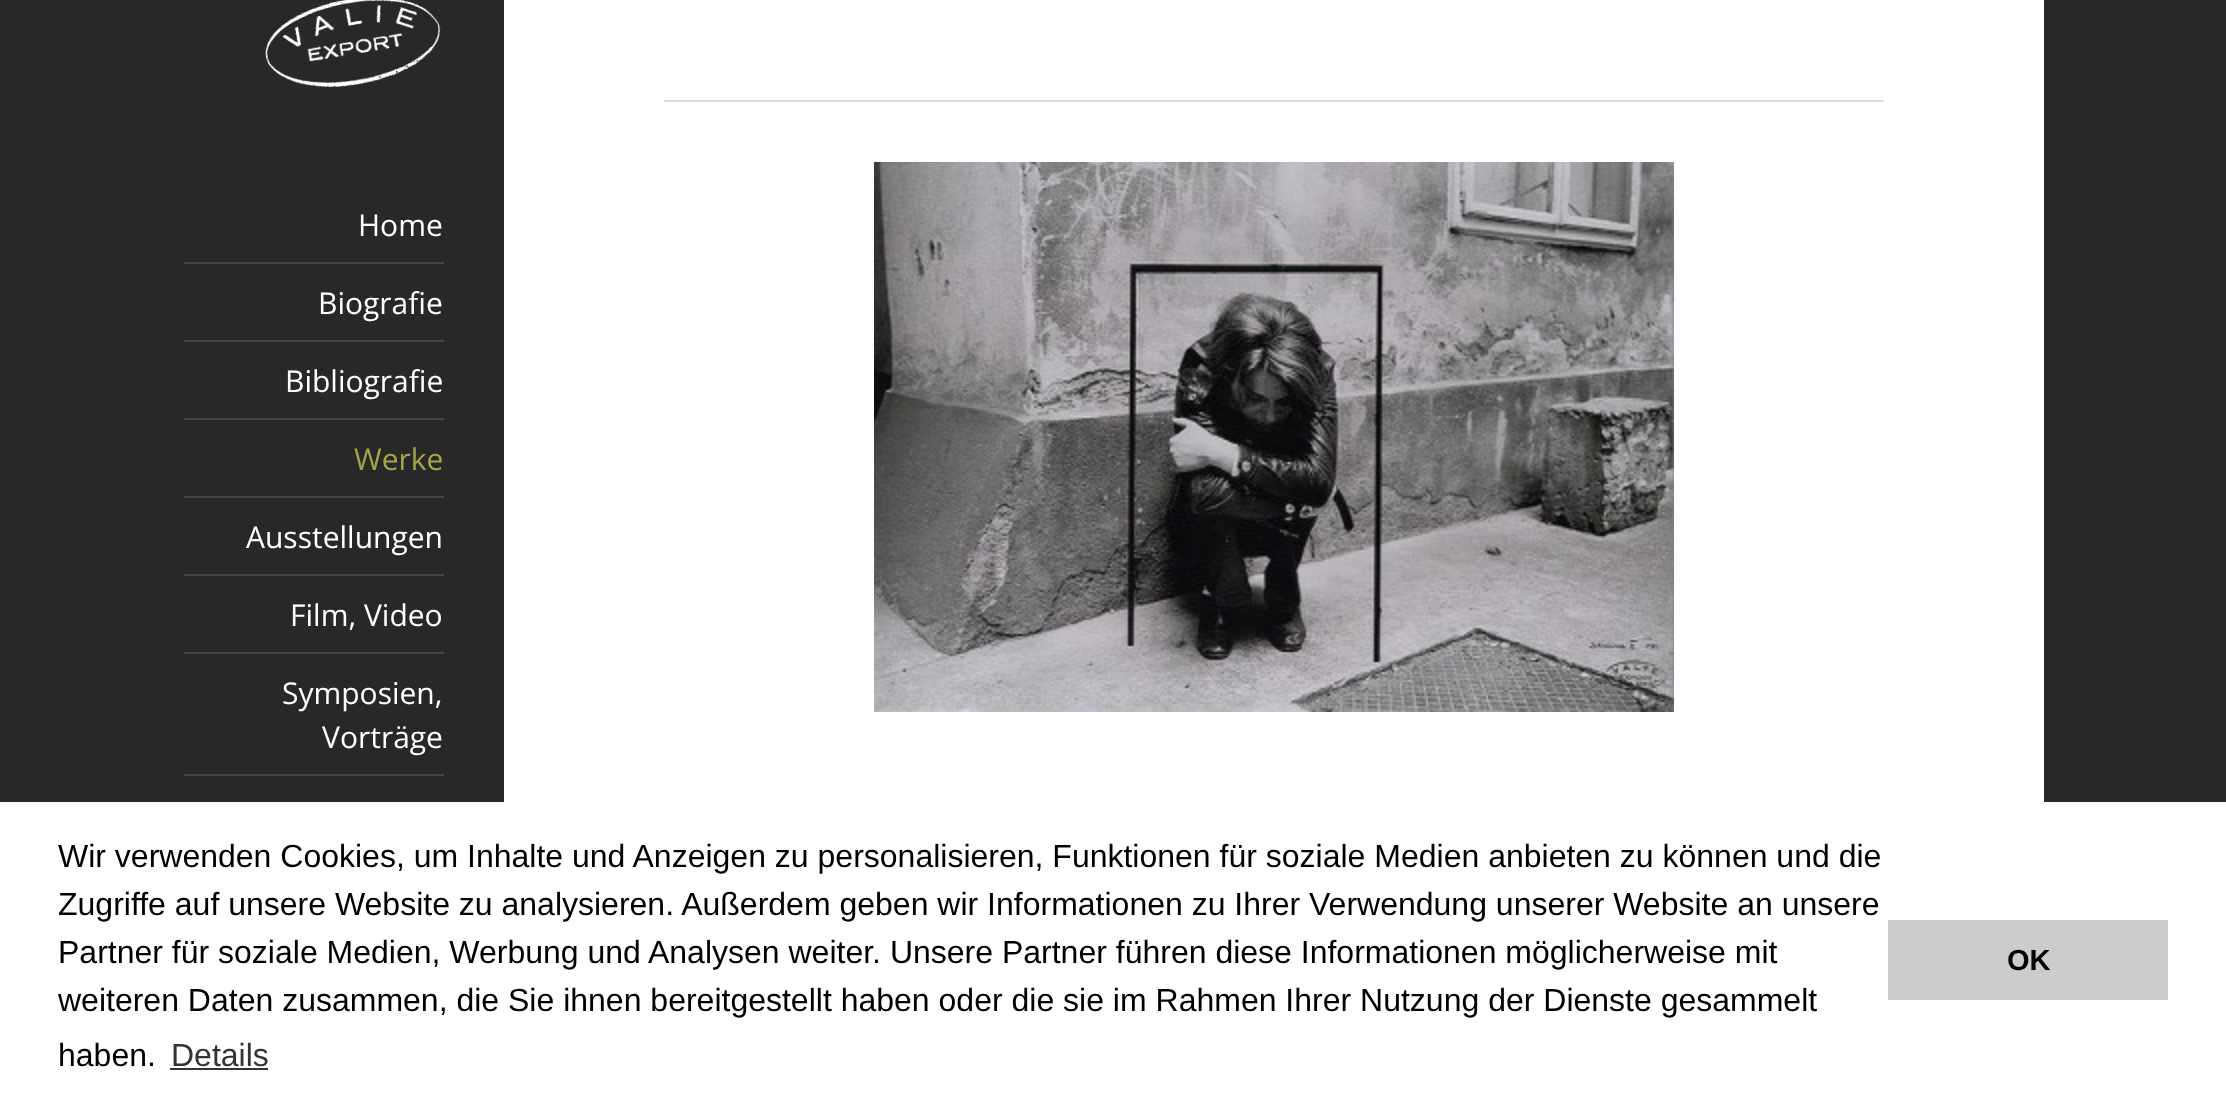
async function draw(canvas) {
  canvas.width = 2226
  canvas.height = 1117
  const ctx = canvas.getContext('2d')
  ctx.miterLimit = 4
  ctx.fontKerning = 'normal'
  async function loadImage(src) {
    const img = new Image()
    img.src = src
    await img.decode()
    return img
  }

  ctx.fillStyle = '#282828'
  ctx.fillRect(0, 0, 2226, 1117)
  ctx.drawImage(await loadImage('image0.png'), 265, 0, 176, 88)
  ctx.font = '30px Open Sans'
  ctx.fillStyle = '#fff'
  ctx.fillText('Home', 358, 236)
  ctx.fillStyle = '#434343'
  ctx.fillRect(184, 262, 260, 2)
  ctx.fillStyle = '#fff'
  ctx.fillText('Biografie', 318, 314)
  ctx.fillStyle = '#434343'
  ctx.fillRect(184, 340, 260, 2)
  ctx.fillStyle = '#fff'
  ctx.fillText('Bibliografie', 285, 392)
  ctx.fillStyle = '#434343'
  ctx.fillRect(184, 418, 260, 2)
  ctx.fillStyle = '#a5a449'
  ctx.fillText('Werke', 354, 470)
  ctx.fillStyle = '#434343'
  ctx.fillRect(184, 496, 260, 2)
  ctx.fillStyle = '#fff'
  ctx.fillText('Ausstellungen', 246, 548)
  ctx.fillStyle = '#434343'
  ctx.fillRect(184, 574, 260, 2)
  ctx.fillStyle = '#fff'
  ctx.fillText('Film, Video', 290, 626)
  ctx.fillStyle = '#434343'
  ctx.fillRect(184, 652, 260, 2)
  ctx.fillStyle = '#fff'
  ctx.fillText('Symposien,', 282, 704)
  ctx.fillText('Vorträge', 322, 748)
  ctx.fillStyle = '#434343'
  ctx.fillRect(184, 774, 260, 2)
  ctx.fillStyle = '#fff'
  ctx.fillRect(504, 0, 1540, 802)
  ctx.fillStyle = '#ddd'
  ctx.fillRect(664, 100, 1220, 2)
  ctx.drawImage(await loadImage('image1.png'), 874, 162, 800, 550)
  ctx.fillStyle = '#fff'
  ctx.fillRect(0, 802, 2226, 315)
  ctx.font = '32px Liberation Sans'
  ctx.fillStyle = '#000'
  ctx.fillText('Wir verwenden Cookies, um Inhalte und Anzeigen zu personalisieren, Funktionen für soziale Medien anbieten zu können und die', 58, 867)
  ctx.fillText('Zugriffe auf unsere Website zu analysieren. Außerdem geben wir Informationen zu Ihrer Verwendung unserer Website an unsere', 58, 915)
  ctx.fillText('Partner für soziale Medien, Werbung und Analysen weiter. Unsere Partner führen diese Informationen möglicherweise mit', 58, 963)
  ctx.fillText('weiteren Daten zusammen, die Sie ihnen bereitgestellt haben oder die sie im Rahmen Ihrer Nutzung der Dienste gesammelt', 58, 1011)
  ctx.fillText('haben.', 58, 1066)
  ctx.fillStyle = '#333'
  ctx.fillText('Details', 171, 1066)
  ctx.fillRect(170, 1068, 98, 2)
  ctx.fillStyle = '#ccc'
  ctx.fillRect(1888, 920, 280, 80)
  ctx.font = 'bold 29px Liberation Sans'
  ctx.fillStyle = '#000'
  ctx.fillText('OK', 2007, 970)
}

draw(document.querySelector('canvas'))
